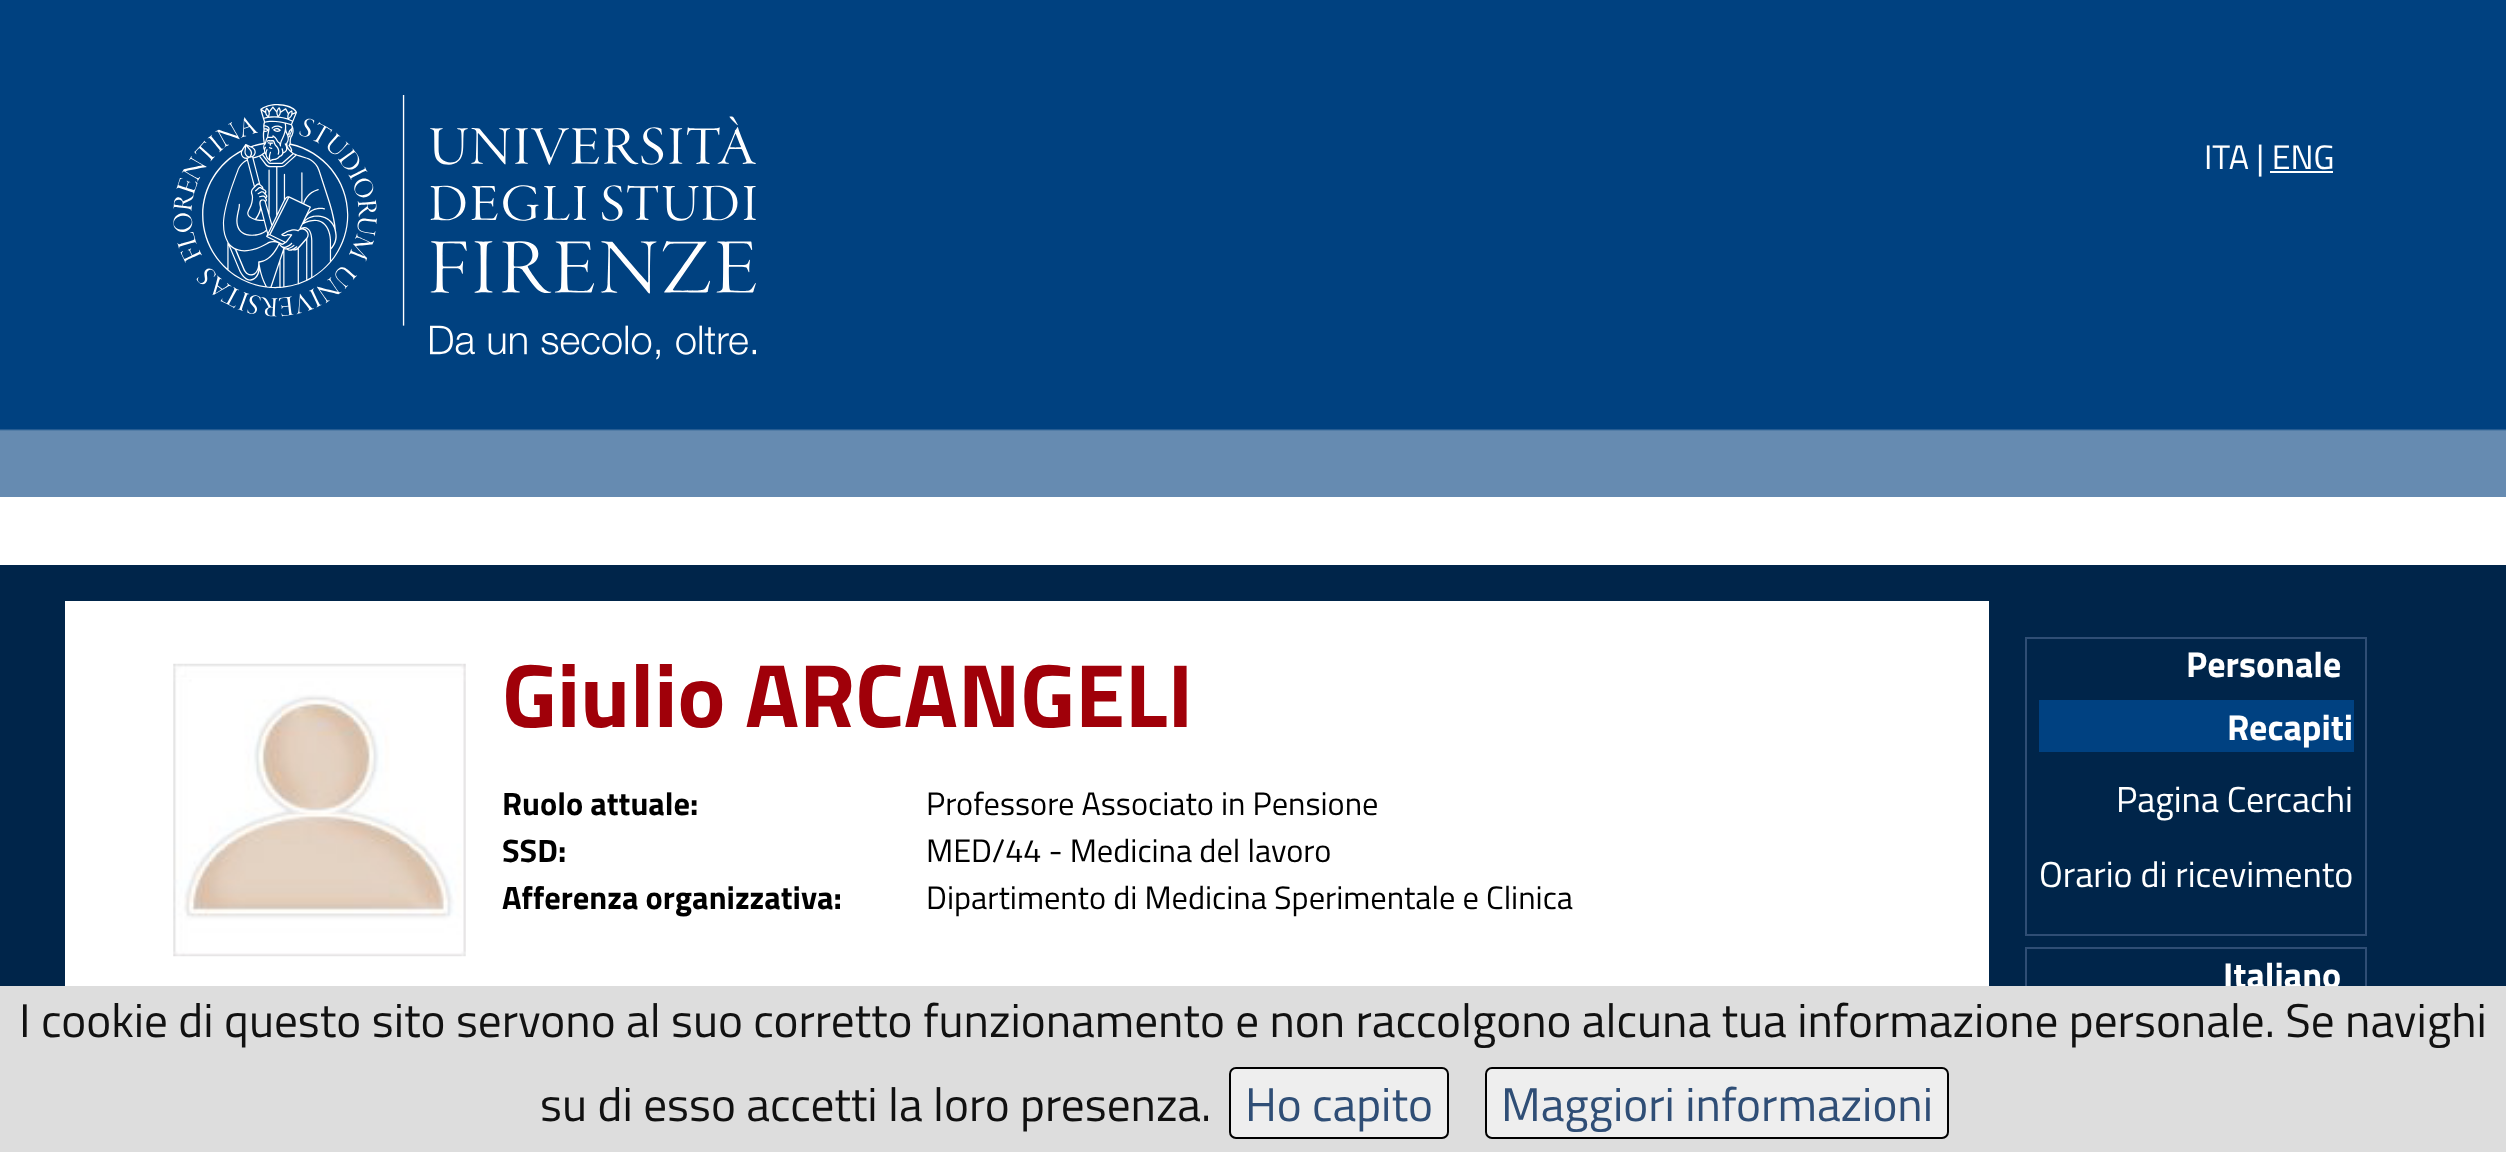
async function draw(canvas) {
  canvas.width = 2506
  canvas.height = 1152
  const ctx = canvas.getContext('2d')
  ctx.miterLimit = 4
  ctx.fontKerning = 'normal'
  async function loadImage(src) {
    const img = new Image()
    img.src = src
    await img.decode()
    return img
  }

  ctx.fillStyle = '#fff'
  ctx.fillRect(0, 0, 2506, 1152)
  ctx.drawImage(await loadImage('image0.png'), 0, 0, 2506, 497)
  ctx.drawImage(await loadImage('image1.png'), 173, 95, 583, 265)
  ctx.font = '34px Titillium Web'
  ctx.fillText('ITA | ENG', 2204, 169)
  ctx.fillRect(2270, 171, 63, 2)
  ctx.fillStyle = '#00254a'
  ctx.fillRect(0, 565, 2506, 421)
  ctx.fillStyle = '#fff'
  ctx.fillRect(65, 601, 1924, 385)
  ctx.drawImage(await loadImage('image2.png'), 173, 663, 293, 294)
  ctx.font = 'bold 90px Titillium Web'
  ctx.fillStyle = '#a00009'
  ctx.fillText('Giulio ARCANGELI', 502, 727)
  ctx.font = 'bold 32.4px Titillium Web'
  ctx.fillStyle = '#000'
  ctx.fillText('Ruolo attuale:', 502, 815)
  ctx.font = '32.4px Titillium Web'
  ctx.fillText('Professore Associato in Pensione', 926, 815)
  ctx.font = 'bold 32.4px Titillium Web'
  ctx.fillText('SSD:', 502, 862)
  ctx.font = '32.4px Titillium Web'
  ctx.fillText('MED/44 - Medicina del lavoro', 926, 862)
  ctx.font = 'bold 32.4px Titillium Web'
  ctx.fillText('Afferenza organizzativa:', 502, 909)
  ctx.font = '32.4px Titillium Web'
  ctx.fillText('Dipartimento di Medicina Sperimentale e Clinica', 926, 909)
  ctx.strokeStyle = '#2f4e75'
  ctx.lineWidth = 2
  ctx.strokeRect(2026, 638, 340, 297)
  ctx.font = 'bold 36px Titillium Web'
  ctx.fillStyle = '#fff'
  ctx.fillText('Personale', 2186, 677)
  ctx.fillStyle = '#004181'
  ctx.fillRect(2039, 700, 315, 52)
  ctx.fillStyle = '#fff'
  ctx.fillText('Recapiti', 2227, 740)
  ctx.font = '36px Titillium Web'
  ctx.fillText('Pagina Cercachi', 2116, 812)
  ctx.fillText('Orario di ricevimento', 2039, 887)
  ctx.strokeRect(2026, 948, 340, 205)
  ctx.font = 'bold 36px Titillium Web'
  ctx.fillText('Italiano', 2223, 988)
  ctx.fillStyle = '#ddd'
  ctx.fillRect(0, 986, 2506, 166)
  ctx.font = '47.25px Titillium Web'
  ctx.fillStyle = '#111'
  ctx.fillText('I cookie di questo sito servono al suo corretto funzionamento e non raccolgono alcuna tua informazione personale. Se navighi', 19, 1037)
  ctx.fillText('su di esso accetti la loro presenza.', 540, 1121)
  ctx.fillStyle = '#eee'
  ctx.beginPath()
  ctx.roundRect(1230, 1068, 218, 70, 6)
  ctx.fill()
  ctx.strokeStyle = '#000'
  ctx.stroke()
  ctx.fillStyle = '#2f4e76'
  ctx.fillText('Ho capito', 1245, 1121)
  ctx.fillStyle = '#eee'
  ctx.beginPath()
  ctx.roundRect(1486, 1068, 462, 70, 6)
  ctx.fill()
  ctx.stroke()
  ctx.fillStyle = '#2f4e76'
  ctx.fillText('Maggiori informazioni', 1501, 1121)
}

draw(document.querySelector('canvas'))
